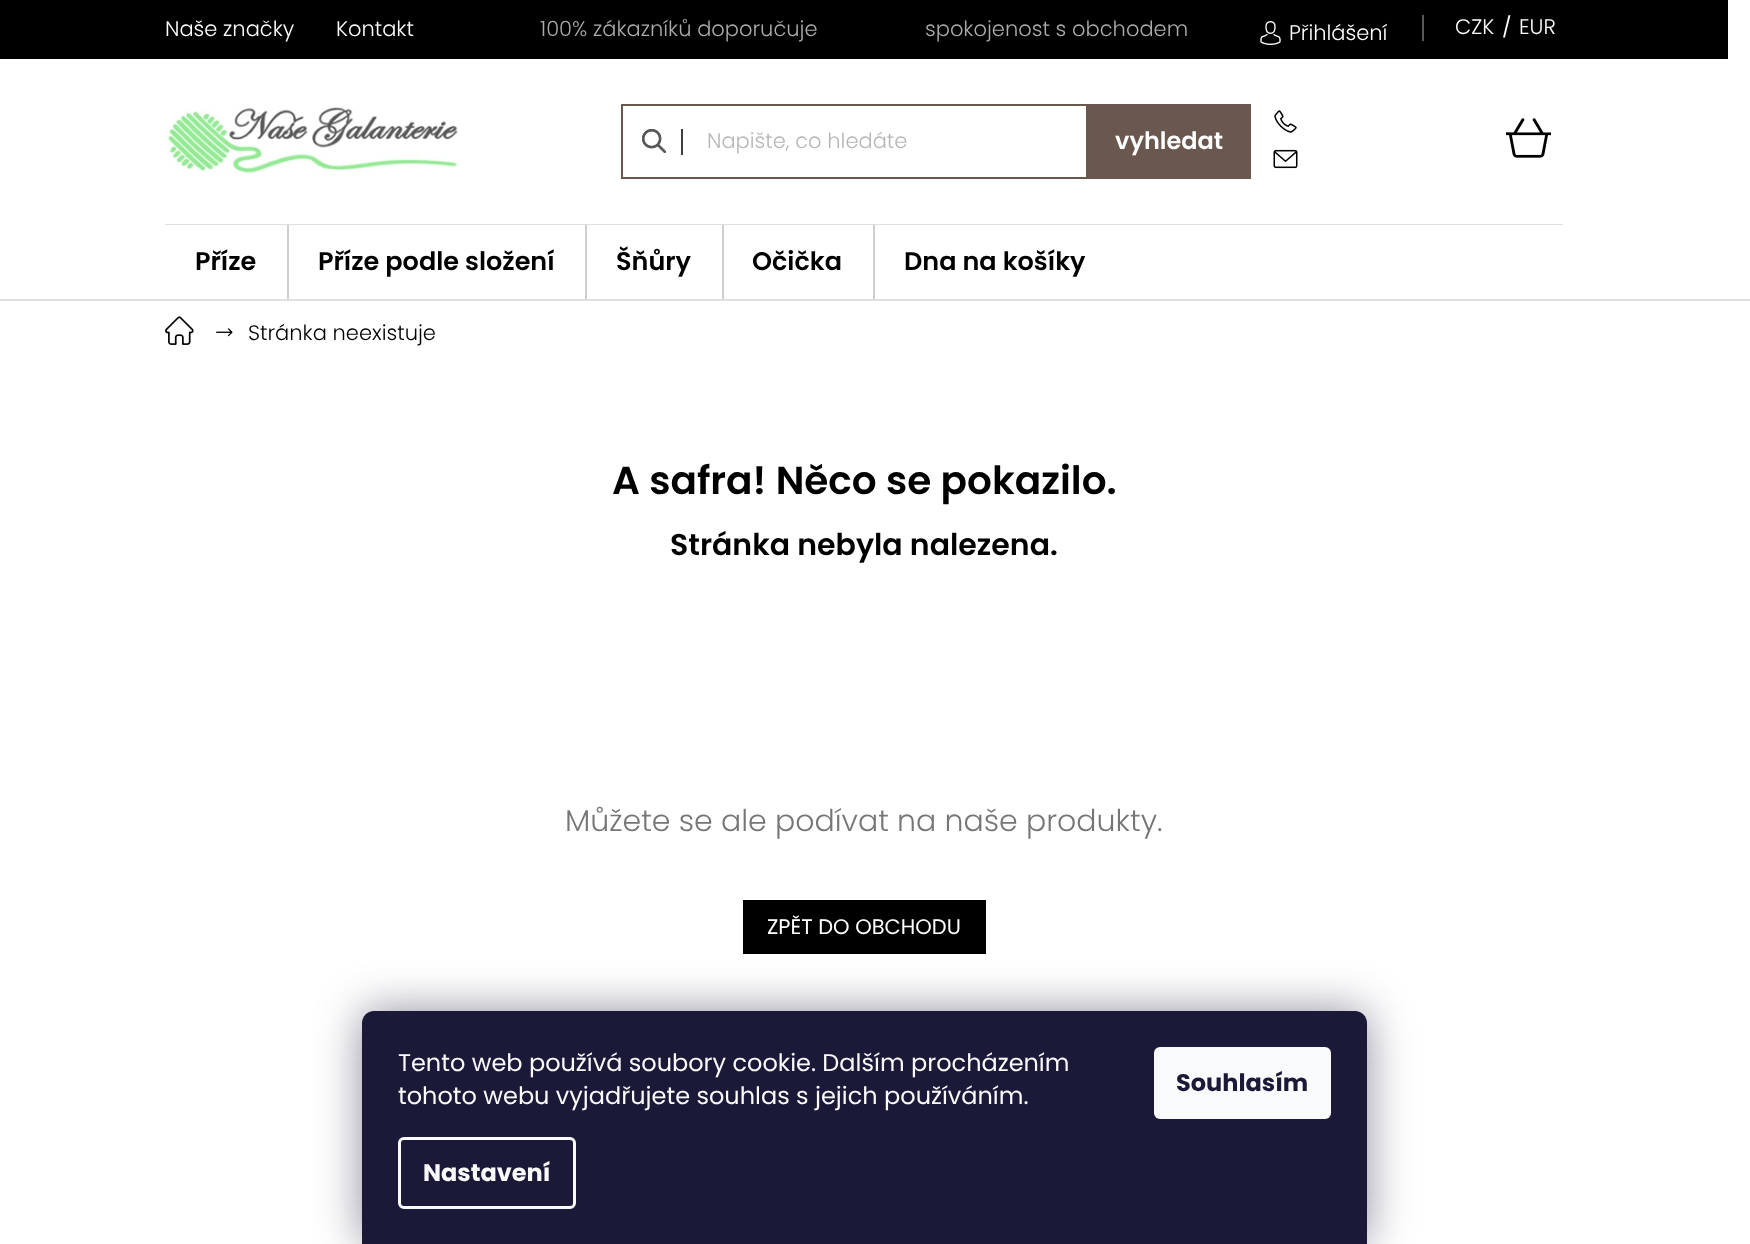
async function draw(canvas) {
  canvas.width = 1750
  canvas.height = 1244
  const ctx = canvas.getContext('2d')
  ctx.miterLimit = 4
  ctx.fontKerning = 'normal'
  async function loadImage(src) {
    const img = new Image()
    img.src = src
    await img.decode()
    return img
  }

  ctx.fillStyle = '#fff'
  ctx.fillRect(0, 0, 1750, 1244)
  ctx.fillStyle = '#000'
  ctx.fillRect(0, 0, 1728, 59)
  ctx.font = '300 21px Poppins'
  ctx.fillStyle = '#fff'
  ctx.fillText('Naše značky', 165, 36)
  ctx.fillText('Kontakt', 336, 36)
  ctx.fillStyle = '#ababab'
  ctx.fillText('100% zákazníků doporučuje', 540, 36)
  ctx.fillText('spokojenost s obchodem', 925, 36)
  ctx.drawImage(await loadImage('image0.png'), 1260, 21, 21, 24)
  ctx.fillStyle = '#fff'
  ctx.fillText('Přihlášení', 1289, 40)
  ctx.fillStyle = '#585858'
  ctx.fillRect(1422, 15, 2, 26)
  ctx.fillStyle = '#fff'
  ctx.fillText('CZK', 1455, 34)
  ctx.font = '20px Poppins'
  ctx.fillText('/', 1502, 34)
  ctx.font = '300 21px Poppins'
  ctx.fillText('EUR', 1519, 34)
  ctx.drawImage(await loadImage('image1.png'), 165, 107, 293, 67)
  ctx.drawImage(await loadImage('image2.png'), 642, 129, 41, 26)
  ctx.strokeStyle = '#6a584e'
  ctx.lineWidth = 2
  ctx.strokeRect(622, 105, 628, 73)
  ctx.fillStyle = '#b6b6b6'
  ctx.fillText('Napište, co hledáte', 707, 148)
  ctx.fillStyle = '#6a584e'
  ctx.fillRect(1086, 106, 163, 71)
  ctx.font = '600 24px Poppins'
  ctx.fillStyle = '#fff'
  ctx.fillText('vyhledat', 1115, 149)
  ctx.drawImage(await loadImage('image3.png'), 1274, 110, 23, 23)
  ctx.drawImage(await loadImage('image4.png'), 1273, 149, 25, 20)
  ctx.drawImage(await loadImage('image5.png'), 1506, 118, 45, 40)
  ctx.fillStyle = '#e0e0e0'
  ctx.fillRect(165, 224, 1398, 1)
  ctx.font = '600 25.5px Poppins'
  ctx.fillStyle = '#000'
  ctx.fillText('Příze', 195, 270)
  ctx.fillStyle = '#cfcfcf'
  ctx.fillRect(287, 225, 2, 74)
  ctx.fillStyle = '#000'
  ctx.fillText('Příze podle složení', 318, 270)
  ctx.fillStyle = '#cfcfcf'
  ctx.fillRect(585, 225, 2, 74)
  ctx.fillStyle = '#000'
  ctx.fillText('Šňůry', 616, 270)
  ctx.fillStyle = '#cfcfcf'
  ctx.fillRect(722, 225, 2, 74)
  ctx.fillStyle = '#000'
  ctx.fillText('Očička', 752, 270)
  ctx.fillStyle = '#cfcfcf'
  ctx.fillRect(873, 225, 2, 74)
  ctx.fillStyle = '#000'
  ctx.fillText('Dna na košíky', 904, 270)
  ctx.fillStyle = '#e0e0e0'
  ctx.fillRect(135, 299, 1458, 1)
  ctx.beginPath()
  ctx.moveTo(137, 300)
  ctx.lineTo(137, 301)
  ctx.lineTo(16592, 301)
  ctx.lineTo(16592, 299)
  ctx.lineTo(1593, 299)
  ctx.lineTo(1593, 300)
  ctx.closePath()
  ctx.fill()
  ctx.fillRect(0, 299, 137, 2)
  ctx.drawImage(await loadImage('image6.png'), 165, 316, 29, 29)
  ctx.drawImage(await loadImage('image7.png'), 216, 328, 17, 9)
  ctx.font = '300 21px Poppins'
  ctx.fillStyle = '#000'
  ctx.fillText('Stránka neexistuje', 248, 340)
  ctx.font = '600 39px Poppins'
  ctx.fillText('A safra! Něco se pokazilo.', 612, 494)
  ctx.font = '600 30px Poppins'
  ctx.fillText('Stránka nebyla nalezena.', 670, 555)
  ctx.font = '300 30px Poppins'
  ctx.fillStyle = '#767676'
  ctx.fillText('Můžete se ale podívat na naše produkty.', 565, 831)
  ctx.fillStyle = '#000'
  ctx.fillRect(743, 900, 243, 54)
  ctx.font = '21px Poppins'
  ctx.fillStyle = '#fff'
  ctx.fillText('ZPĚT DO OBCHODU', 767, 934)
  ctx.fillStyle = '#1b193980'
  ctx.filter = 'blur(22.5px)'
  ctx.beginPath()
  ctx.roundRect(362, 1011, 1005, 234, 12)
  ctx.fill()
  ctx.filter = 'none'
  ctx.fillStyle = '#1a1937'
  ctx.beginPath()
  ctx.moveTo(374, 1011)
  ctx.lineTo(1355, 1011)
  ctx.bezierCurveTo(1361.5, 1011, 1367, 1016.5, 1367, 1023)
  ctx.lineTo(1367, 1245)
  ctx.lineTo(362, 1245)
  ctx.lineTo(362, 1023)
  ctx.bezierCurveTo(362, 1016.5, 367.5, 1011, 374, 1011)
  ctx.closePath()
  ctx.fill()
  ctx.font = '24px Poppins'
  ctx.fillStyle = '#f8fafb'
  ctx.fillText('Tento web používá soubory cookie. Dalším procházením', 398, 1071)
  ctx.fillText('tohoto webu vyjadřujete souhlas s jejich používáním.', 398, 1104)
  ctx.beginPath()
  ctx.roundRect(399.5, 1138.5, 175, 69, 4.5)
  ctx.strokeStyle = '#f8fafb'
  ctx.lineWidth = 3
  ctx.stroke()
  ctx.font = 'bold 24px Poppins'
  ctx.fillText('Nastavení', 423, 1181)
  ctx.beginPath()
  ctx.roundRect(1154, 1047, 177, 72, 6)
  ctx.fill()
  ctx.fillStyle = '#1a1937'
  ctx.fillText('Souhlasím', 1176, 1091)
}

draw(document.querySelector('canvas'))
